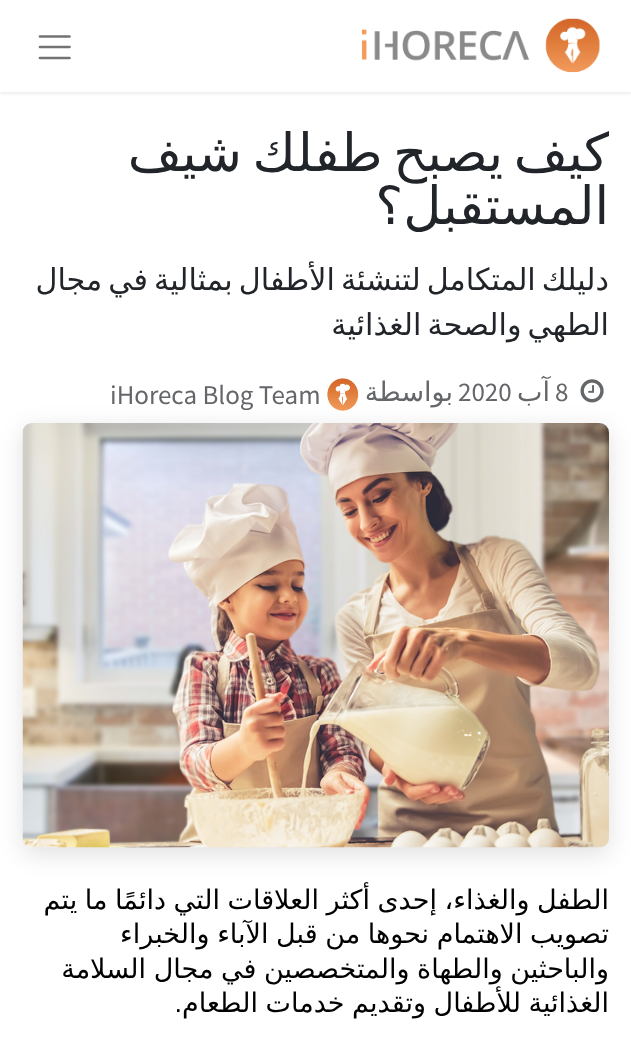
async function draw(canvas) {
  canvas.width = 631
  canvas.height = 1058
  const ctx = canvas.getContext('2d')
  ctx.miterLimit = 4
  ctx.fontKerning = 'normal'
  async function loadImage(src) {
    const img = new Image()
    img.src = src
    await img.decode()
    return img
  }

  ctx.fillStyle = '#fff'
  ctx.fillRect(0, 0, 631, 1058)
  ctx.fillStyle = '#0000001a'
  ctx.filter = 'blur(2px)'
  ctx.beginPath()
  ctx.rect(0, 2, 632, 91)
  ctx.fill()
  ctx.filter = 'none'
  ctx.fillStyle = '#fff'
  ctx.fillRect(0, 0, 631, 92)
  ctx.drawImage(await loadImage('image0.png'), 361, 18, 239, 55)
  ctx.beginPath()
  ctx.moveTo(40, 36.5)
  ctx.lineTo(69.5, 36.5)
  ctx.moveTo(40, 47)
  ctx.lineTo(69.5, 47)
  ctx.moveTo(40, 58)
  ctx.lineTo(69.5, 58)
  ctx.strokeStyle = '#737373'
  ctx.lineWidth = 2.7
  ctx.lineCap = 'round'
  ctx.stroke()
  ctx.wordSpacing = '-6px'
  ctx.direction = 'rtl'
  ctx.font = '52.5px DejaVu Sans'
  ctx.fillStyle = '#212529'
  ctx.fillText('كيف يصبح طفلك شيف', 609, 171)
  ctx.wordSpacing = '0px'
  ctx.fillText('المستقبل؟', 609, 224)
  ctx.wordSpacing = '-3.5px'
  ctx.font = '30.2px DejaVu Sans'
  ctx.fillText('دليلك المتكامل لتنشئة الأطفال بمثالية في مجال', 609, 290)
  ctx.fillText('الطهي والصحة الغذائية', 609, 335)
  ctx.drawImage(await loadImage('image1.png'), 580, 379, 24, 24)
  ctx.wordSpacing = '0px'
  ctx.direction = 'ltr'
  ctx.font = '27px Source Sans Pro'
  ctx.fillStyle = '#646669'
  ctx.fillText('8', 555, 401)
  ctx.direction = 'rtl'
  ctx.font = '27px DejaVu Sans'
  ctx.fillText('آب', 550, 401)
  ctx.direction = 'ltr'
  ctx.font = '27px Source Sans Pro'
  ctx.fillText('2020', 458, 401)
  ctx.direction = 'rtl'
  ctx.font = '27px DejaVu Sans'
  ctx.fillText('بواسطة', 453, 401)
  ctx.drawImage(await loadImage('image2.png'), 327, 378, 32, 33)
  ctx.direction = 'ltr'
  ctx.font = '27px Source Sans Pro'
  ctx.fillText('iHoreca Blog Team', 110, 404)
  ctx.fillStyle = '#0000001f'
  ctx.filter = 'blur(12px)'
  ctx.beginPath()
  ctx.roundRect(23, 429, 586, 425, 9)
  ctx.fill()
  ctx.filter = 'none'
  ctx.drawImage(await loadImage('image3.png'), 22, 423, 587, 425)
  ctx.wordSpacing = '-1px'
  ctx.direction = 'rtl'
  ctx.font = '27px DejaVu Sans'
  ctx.fillStyle = '#000'
  ctx.fillText('الطفل والغذاء، إحدى أكثر العلاقات التي دائمًا ما يتم', 609, 909)
  ctx.fillText('تصويب الاهتمام نحوها من قبل الآباء والخبراء', 609, 943)
  ctx.fillText('والباحثين والطهاة والمتخصصين في مجال السلامة', 609, 978)
  ctx.fillText('الغذائية للأطفال وتقديم خدمات الطعام', 609, 1012)
  ctx.wordSpacing = '0px'
  ctx.font = '27px Liberation Sans'
  ctx.fillText('.', 182, 1012)
}

draw(document.querySelector('canvas'))
